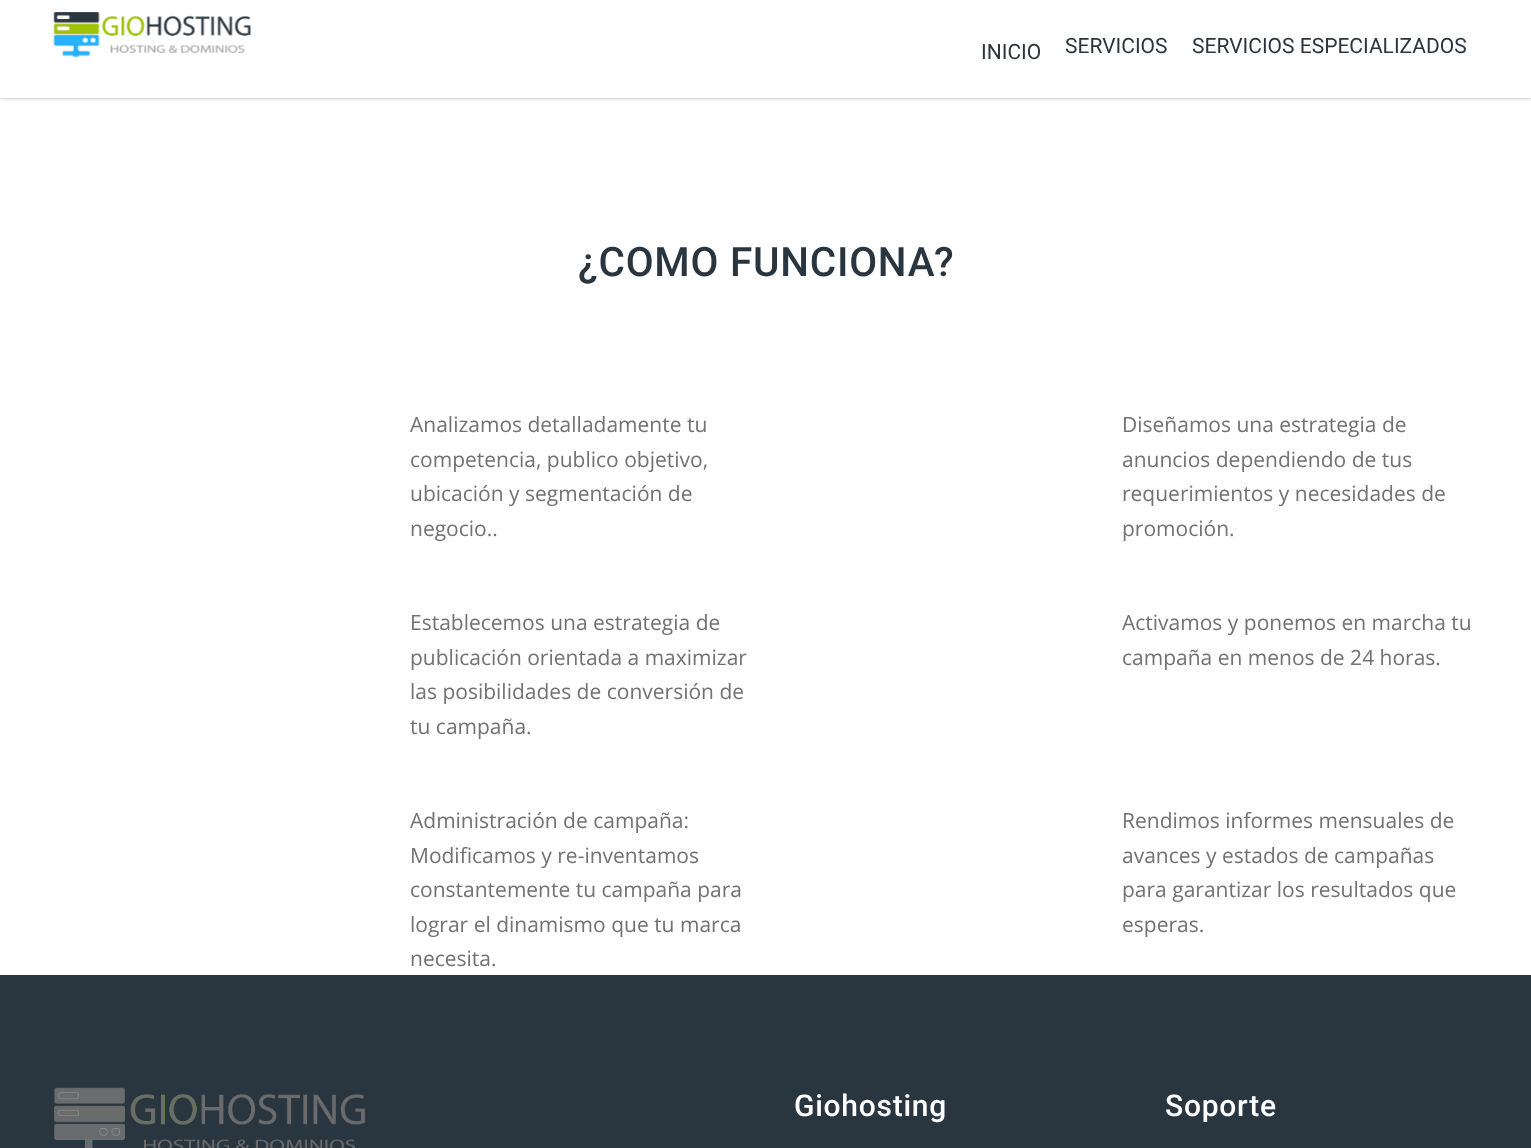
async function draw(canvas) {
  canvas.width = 1531
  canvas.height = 1148
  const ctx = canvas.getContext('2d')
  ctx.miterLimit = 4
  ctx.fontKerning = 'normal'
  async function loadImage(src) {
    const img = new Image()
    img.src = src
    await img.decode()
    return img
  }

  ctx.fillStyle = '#fff'
  ctx.fillRect(0, 0, 1531, 1148)
  ctx.save()
  ctx.beginPath()
  ctx.moveTo(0, 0)
  ctx.lineTo(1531, 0)
  ctx.lineTo(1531, 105)
  ctx.lineTo(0, 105)
  ctx.closePath()
  ctx.moveTo(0, 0)
  ctx.lineTo(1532, 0)
  ctx.lineTo(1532, 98)
  ctx.lineTo(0, 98)
  ctx.closePath()
  ctx.clip('evenodd')
  ctx.fillStyle = '#00000033'
  ctx.filter = 'blur(1.5px)'
  ctx.beginPath()
  ctx.rect(0, 2, 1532, 97)
  ctx.fill()
  ctx.filter = 'none'
  ctx.restore()
  ctx.fillStyle = '#fffffffc'
  ctx.fillRect(0, 97, 1531, 1)
  ctx.drawImage(await loadImage('image0.png'), 53, 12, 199, 45)
  ctx.font = '21px Roboto'
  ctx.fillStyle = '#2a363f'
  ctx.fillText('INICIO', 981, 59)
  ctx.fillText('SERVICIOS', 1065, 53)
  ctx.fillText('SERVICIOS ESPECIALIZADOS', 1192, 53)
  ctx.letterSpacing = '0.75px'
  ctx.font = '500 40.5px Roboto'
  ctx.fillText('¿COMO FUNCIONA?', 578, 276)
  ctx.letterSpacing = '0px'
  ctx.font = '21px Open Sans'
  ctx.fillStyle = '#727272'
  ctx.fillText('Analizamos detalladamente tu', 410, 432)
  ctx.fillText('competencia, publico objetivo,', 410, 467)
  ctx.fillText('ubicación y segmentación de', 410, 501)
  ctx.fillText('negocio..', 410, 536)
  ctx.fillText('Diseñamos una estrategia de', 1122, 432)
  ctx.fillText('anuncios dependiendo de tus', 1122, 467)
  ctx.fillText('requerimientos y necesidades de', 1122, 501)
  ctx.fillText('promoción.', 1122, 536)
  ctx.fillText('Establecemos una estrategia de', 410, 630)
  ctx.fillText('publicación orientada a maximizar', 410, 665)
  ctx.fillText('las posibilidades de conversión de', 410, 699)
  ctx.fillText('tu campaña.', 410, 734)
  ctx.fillText('Activamos y ponemos en marcha tu', 1122, 630)
  ctx.fillText('campaña en menos de 24 horas.', 1122, 665)
  ctx.fillText('Administración de campaña:', 410, 828)
  ctx.fillText('Modificamos y re-inventamos', 410, 863)
  ctx.fillText('constantemente tu campaña para', 410, 897)
  ctx.fillText('lograr el dinamismo que tu marca', 410, 932)
  ctx.fillText('necesita.', 410, 966)
  ctx.fillText('Rendimos informes mensuales de', 1122, 828)
  ctx.fillText('avances y estados de campañas', 1122, 863)
  ctx.fillText('para garantizar los resultados que', 1122, 897)
  ctx.fillText('esperas.', 1122, 932)
  ctx.fillStyle = '#2a363f'
  ctx.fillRect(0, 975, 1531, 173)
  ctx.drawImage(await loadImage('image1.png'), 54, 1087, 312, 61)
  ctx.letterSpacing = '0.75px'
  ctx.font = '500 30px Roboto'
  ctx.fillStyle = '#fff'
  ctx.fillText('Giohosting', 794, 1116)
  ctx.fillText('Soporte', 1165, 1116)
}

draw(document.querySelector('canvas'))
